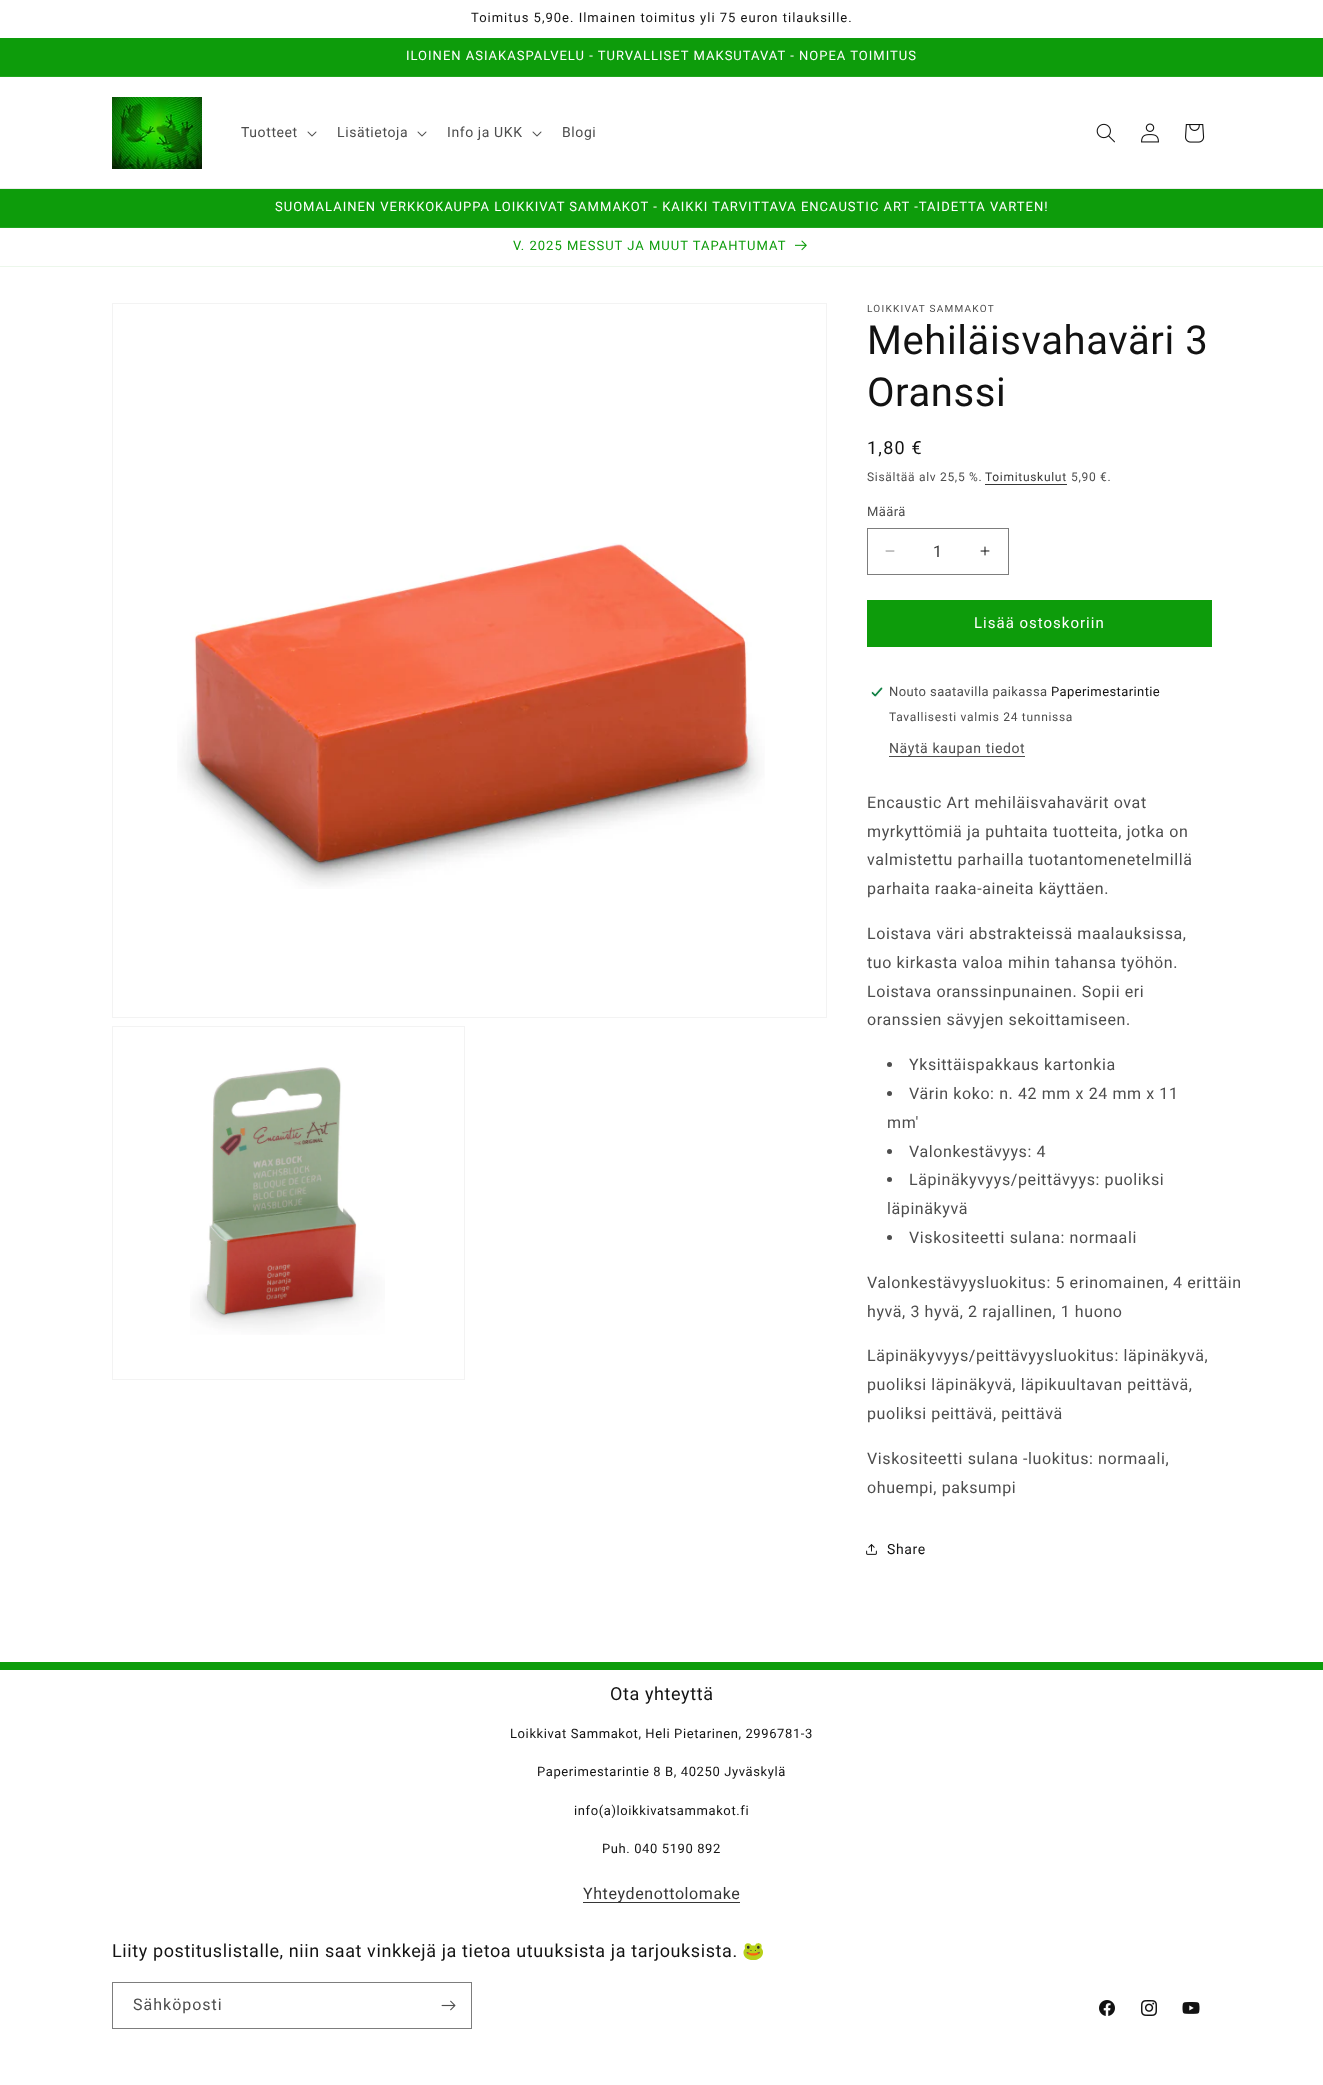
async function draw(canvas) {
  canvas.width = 1323
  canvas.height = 2085
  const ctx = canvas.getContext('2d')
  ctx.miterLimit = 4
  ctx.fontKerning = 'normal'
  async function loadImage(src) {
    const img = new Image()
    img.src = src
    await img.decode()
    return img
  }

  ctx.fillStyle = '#fff'
  ctx.fillRect(0, 0, 1323, 2085)
  ctx.letterSpacing = '1px'
  ctx.font = '13px Roboto'
  ctx.fillStyle = '#121212'
  ctx.fillText('Toimitus 5,90e. Ilmainen toimitus yli 75 euron tilauksille.', 471, 22)
  ctx.fillStyle = '#0d9c0b'
  ctx.fillRect(0, 38, 1323, 38)
  ctx.fillStyle = '#20a41f'
  ctx.fillRect(0, 76, 1323, 1)
  ctx.fillStyle = '#fff'
  ctx.fillText('ILOINEN ASIAKASPALVELU - TURVALLISET MAKSUTAVAT - NOPEA TOIMITUS', 406, 60)
  ctx.fillStyle = '#ececec'
  ctx.fillRect(0, 188, 1323, 1)
  ctx.drawImage(await loadImage('image0.png'), 112, 97, 90, 72)
  ctx.letterSpacing = '0.6px'
  ctx.font = '14px Roboto'
  ctx.fillStyle = '#4d4d4d'
  ctx.fillText('Tuotteet', 241, 137)
  ctx.drawImage(await loadImage('image1.png'), 307, 131, 10, 6)
  ctx.fillText('Lisätietoja', 337, 137)
  ctx.drawImage(await loadImage('image1.png'), 417, 131, 10, 6)
  ctx.fillText('Info ja UKK', 447, 137)
  ctx.drawImage(await loadImage('image1.png'), 532, 131, 10, 6)
  ctx.fillText('Blogi', 562, 137)
  ctx.drawImage(await loadImage('image2.png'), 1096, 123, 19, 20)
  ctx.drawImage(await loadImage('image3.png'), 1141, 123, 18, 20)
  ctx.drawImage(await loadImage('image4.png'), 1185, 124, 20, 19)
  ctx.fillStyle = '#0d9c0b'
  ctx.fillRect(0, 189, 1323, 38)
  ctx.fillStyle = '#20a41f'
  ctx.fillRect(0, 227, 1323, 1)
  ctx.letterSpacing = '1px'
  ctx.font = '13px Roboto'
  ctx.fillStyle = '#fff'
  ctx.fillText('SUOMALAINEN VERKKOKAUPPA LOIKKIVAT SAMMAKOT - KAIKKI TARVITTAVA ENCAUSTIC ART -TAIDETTA VARTEN!', 275, 211)
  ctx.fillStyle = '#ecf7eb'
  ctx.fillRect(0, 266, 1323, 1)
  ctx.fillStyle = '#0d9c0b'
  ctx.fillText('V. 2025 MESSUT JA MUUT TAPAHTUMAT', 513, 250)
  ctx.drawImage(await loadImage('image5.png'), 795, 240, 12, 11)
  ctx.strokeStyle = '#f3f3f3'
  ctx.strokeRect(112.5, 303.5, 714, 714)
  ctx.drawImage(await loadImage('image6.png'), 177, 543, 588, 346)
  ctx.strokeRect(112.5, 1026.5, 352, 353)
  ctx.drawImage(await loadImage('image7.png'), 190, 1067, 195, 268)
  ctx.letterSpacing = '1.25px'
  ctx.font = '10px Roboto'
  ctx.fillStyle = '#4d4d4d'
  ctx.fillText('LOIKKIVAT SAMMAKOT', 867, 312)
  ctx.letterSpacing = '0.6px'
  ctx.font = '40px Roboto'
  ctx.fillStyle = '#121212'
  ctx.fillText('Mehiläisvahaväri 3', 867, 354)
  ctx.fillText('Oranssi', 867, 406)
  ctx.letterSpacing = '1.25px'
  ctx.font = '18px Roboto'
  ctx.fillText('1,80 €', 867, 454)
  ctx.letterSpacing = '0.7px'
  ctx.font = '12px Roboto'
  ctx.fillStyle = '#4d4d4d'
  ctx.fillText('Sisältää alv 25,5 %.', 867, 481)
  ctx.fillStyle = '#363636'
  ctx.fillText('Toimituskulut', 985, 481)
  ctx.fillRect(985, 484, 82, 1)
  ctx.fillStyle = '#4d4d4d'
  ctx.fillText('5,90 €.', 1071, 481)
  ctx.letterSpacing = '0.4px'
  ctx.font = '13px Roboto'
  ctx.fillText('Määrä', 867, 516)
  ctx.drawImage(await loadImage('image8.png'), 885, 550, 10, 2)
  ctx.drawImage(await loadImage('image9.png'), 980, 546, 10, 10)
  ctx.strokeStyle = '#7d7d7d'
  ctx.strokeRect(867.5, 528.5, 141, 46)
  ctx.letterSpacing = '0px'
  ctx.font = '16px Roboto'
  ctx.fillStyle = '#363636'
  ctx.fillText('1', 933, 557)
  ctx.fillStyle = '#0d9c0b'
  ctx.fillRect(867, 600, 345, 47)
  ctx.letterSpacing = '1px'
  ctx.font = '15px Roboto'
  ctx.fillStyle = '#fff'
  ctx.fillText('Lisää ostoskoriin', 974, 628)
  ctx.drawImage(await loadImage('image10.png'), 871, 687, 12, 10)
  ctx.letterSpacing = '0.4px'
  ctx.font = '13px Roboto'
  ctx.fillStyle = '#4d4d4d'
  ctx.fillText('Nouto saatavilla paikassa', 889, 696)
  ctx.fillStyle = '#121212'
  ctx.fillText('Paperimestarintie', 1051, 696)
  ctx.letterSpacing = '0.7px'
  ctx.font = '12px Roboto'
  ctx.fillStyle = '#4d4d4d'
  ctx.fillText('Tavallisesti valmis 24 tunnissa', 889, 721)
  ctx.letterSpacing = '0.6px'
  ctx.font = '14px Roboto'
  ctx.fillText('Näytä kaupan tiedot', 889, 753)
  ctx.fillRect(889, 756, 136, 1)
  ctx.font = '16px Roboto'
  ctx.fillText('Encaustic Art mehiläisvahavärit ovat', 867, 808)
  ctx.fillText('myrkyttömiä ja puhtaita tuotteita, jotka on', 867, 837)
  ctx.fillText('valmistettu parhailla tuotantomenetelmillä', 867, 865)
  ctx.fillText('parhaita raaka-aineita käyttäen.', 867, 894)
  ctx.fillText('Loistava väri abstrakteissä maalauksissa,', 867, 939)
  ctx.fillText('tuo kirkasta valoa mihin tahansa työhön.', 867, 968)
  ctx.fillText('Loistava oranssinpunainen. Sopii eri', 867, 997)
  ctx.fillText('oranssien sävyjen sekoittamiseen.', 867, 1025)
  ctx.beginPath()
  ctx.arc(889.5, 1064.5, 2.5, 0, 2 * Math.PI)
  ctx.fill()
  ctx.fillText('Yksittäispakkaus kartonkia', 909, 1070)
  ctx.beginPath()
  ctx.arc(889.5, 1093.5, 2.5, 0, 2 * Math.PI)
  ctx.fill()
  ctx.fillText('Värin koko: n. 42 mm x 24 mm x 11', 909, 1099)
  ctx.fillText('mm\'', 887, 1128)
  ctx.beginPath()
  ctx.arc(889.5, 1151.5, 2.5, 0, 2 * Math.PI)
  ctx.fill()
  ctx.fillText('Valonkestävyys: 4', 909, 1157)
  ctx.beginPath()
  ctx.arc(889.5, 1179.5, 2.5, 0, 2 * Math.PI)
  ctx.fill()
  ctx.fillText('Läpinäkyvyys/peittävyys: puoliksi', 909, 1185)
  ctx.fillText('läpinäkyvä', 887, 1214)
  ctx.beginPath()
  ctx.arc(889.5, 1237.5, 2.5, 0, 2 * Math.PI)
  ctx.fill()
  ctx.fillText('Viskositeetti sulana: normaali', 909, 1243)
  ctx.fillText('Valonkestävyysluokitus: 5 erinomainen, 4 erittäin', 867, 1288)
  ctx.fillText('hyvä, 3 hyvä, 2 rajallinen, 1 huono', 867, 1317)
  ctx.fillText('Läpinäkyvyys/peittävyysluokitus: läpinäkyvä,', 867, 1361)
  ctx.fillText('puoliksi läpinäkyvä, läpikuultavan peittävä,', 867, 1390)
  ctx.fillText('puoliksi peittävä, peittävä', 867, 1419)
  ctx.fillText('Viskositeetti sulana -luokitus: normaali,', 867, 1464)
  ctx.fillText('ohuempi, paksumpi', 867, 1493)
  ctx.drawImage(await loadImage('image11.png'), 866, 1544, 11, 11)
  ctx.font = '14px Roboto'
  ctx.fillStyle = '#121212'
  ctx.fillText('Share', 887, 1554)
  ctx.fillStyle = '#0d9c0b'
  ctx.fillRect(0, 1662, 1323, 8)
  ctx.font = '18px Roboto'
  ctx.fillStyle = '#121212'
  ctx.fillText('Ota yhteyttä', 610, 1700)
  ctx.font = '13px Roboto'
  ctx.fillText('Loikkivat Sammakot, Heli Pietarinen, 2996781-3', 510, 1738)
  ctx.fillText('Paperimestarintie 8 B, 40250 Jyväskylä', 537, 1776)
  ctx.fillText('info(a)loikkivatsammakot.fi', 574, 1815)
  ctx.fillText('Puh. 040 5190 892', 602, 1853)
  ctx.fillStyle = '#363636'
  ctx.fillRect(583, 1902, 157, 1)
  ctx.font = '16px Roboto'
  ctx.fillText('Yhteydenottolomake', 583, 1899)
  ctx.font = '18px Roboto'
  ctx.fillStyle = '#121212'
  ctx.fillText('Liity postituslistalle, niin saat vinkkejä ja tietoa utuuksista ja tarjouksista.', 112, 1957)
  ctx.font = '18px Noto Color Emoji'
  ctx.fillText('🐸', 742, 1957)
  ctx.strokeRect(112.5, 1982.5, 359, 46)
  ctx.letterSpacing = '1px'
  ctx.font = '16px Roboto'
  ctx.fillStyle = '#4d4d4d'
  ctx.fillText('Sähköposti', 133, 2010)
  ctx.drawImage(await loadImage('image12.png'), 441, 2000, 15, 11)
  ctx.drawImage(await loadImage('image13.png'), 1099, 2000, 16, 16)
  ctx.drawImage(await loadImage('image14.png'), 1141, 2000, 16, 16)
  ctx.drawImage(await loadImage('image15.png'), 1182, 2002, 18, 12)
}

draw(document.querySelector('canvas'))
